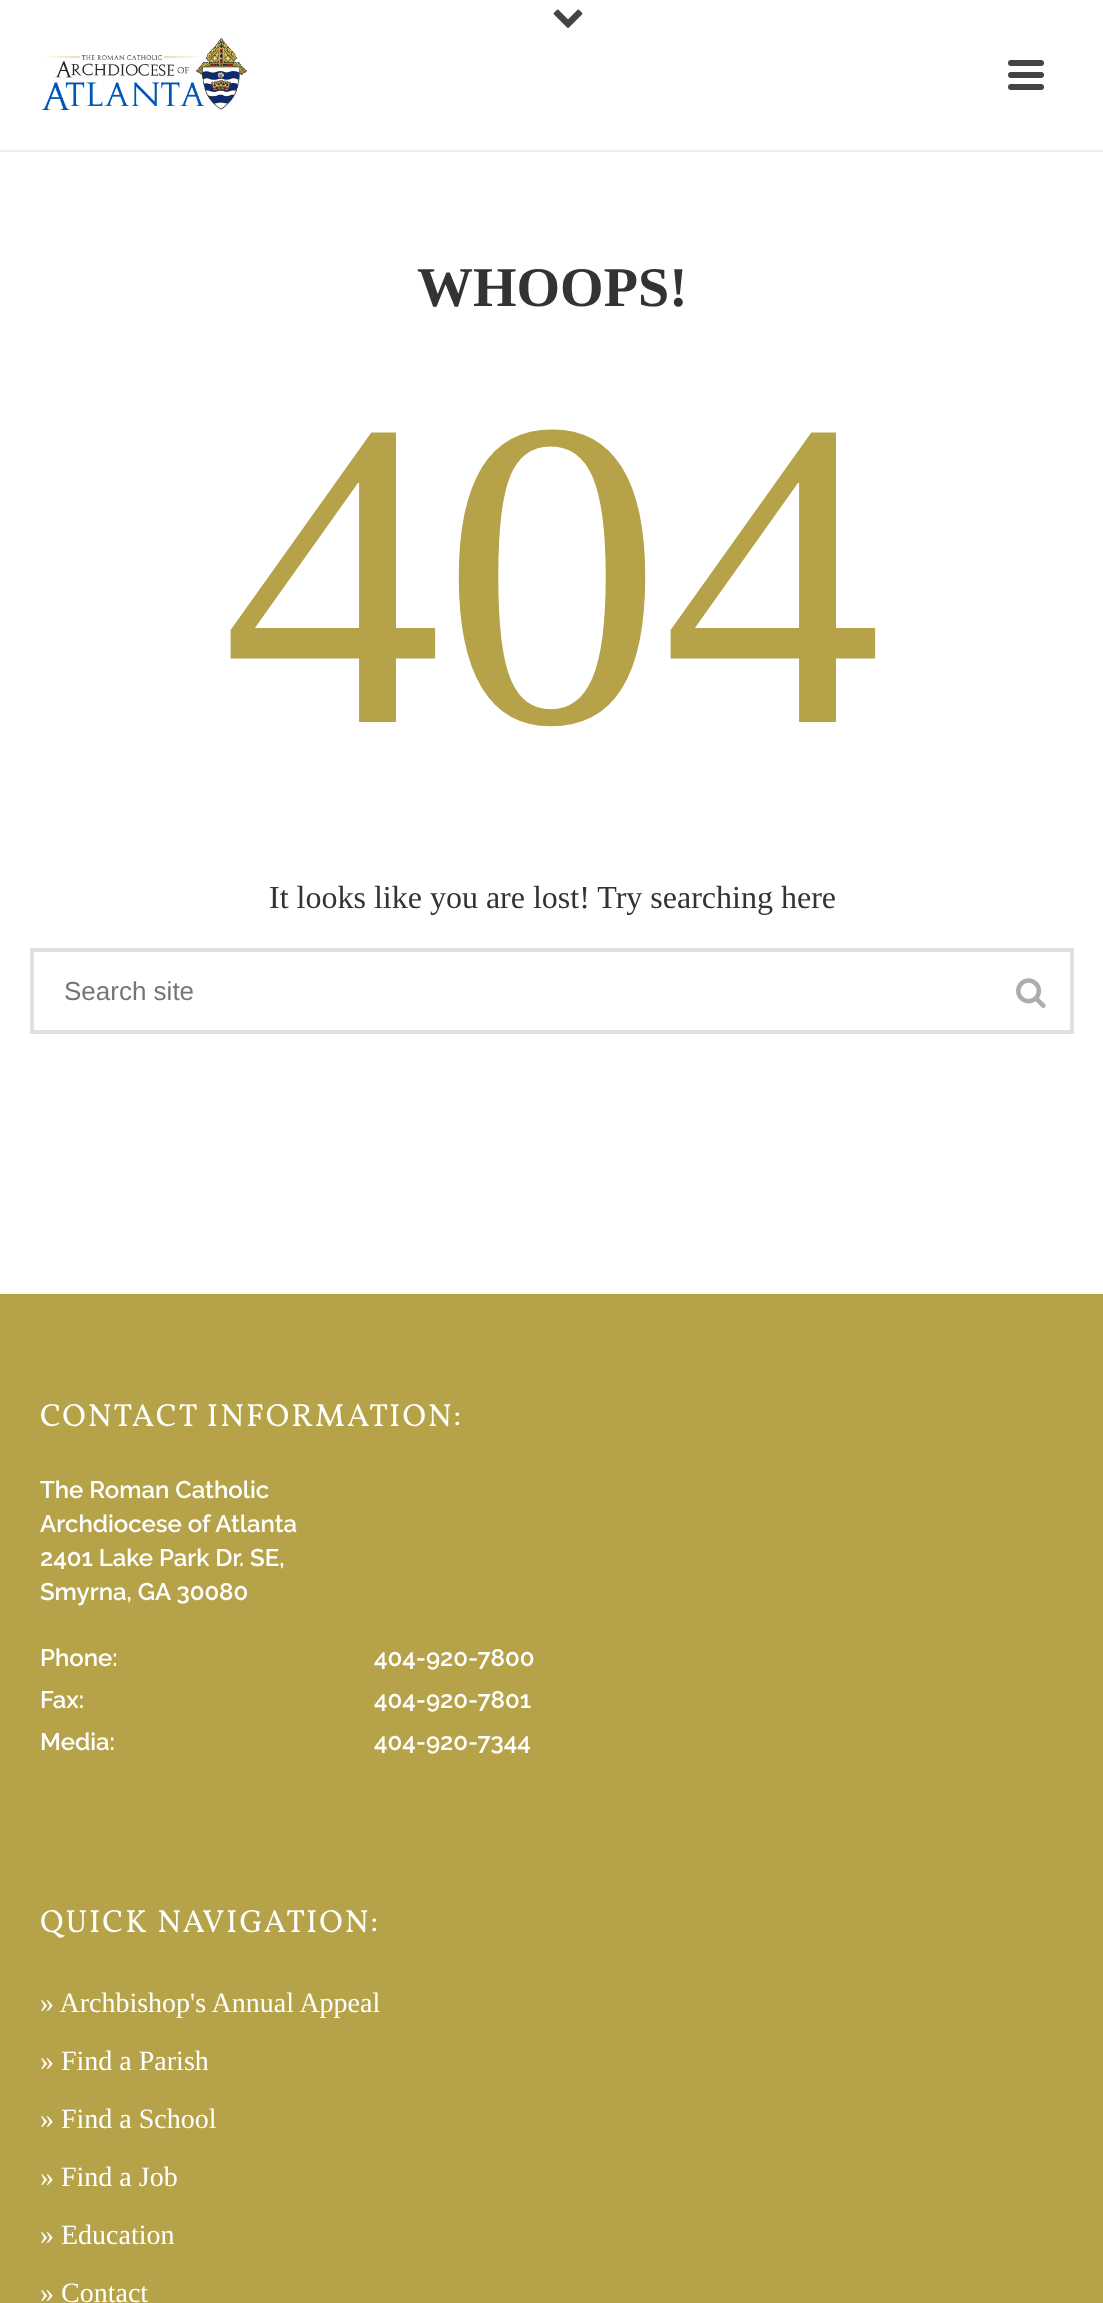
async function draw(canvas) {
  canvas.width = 1103
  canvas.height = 2303
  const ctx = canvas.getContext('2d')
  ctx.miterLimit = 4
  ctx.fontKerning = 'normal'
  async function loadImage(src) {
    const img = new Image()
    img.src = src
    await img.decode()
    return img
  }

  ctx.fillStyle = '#fff'
  ctx.fillRect(0, 0, 1103, 2303)
  ctx.fillStyle = '#ededed'
  ctx.fillRect(0, 150, 1103, 2)
  ctx.drawImage(await loadImage('image0.png'), 553, 9, 30, 19)
  ctx.drawImage(await loadImage('image1.png'), 41, 38, 206, 72)
  ctx.fillStyle = '#444'
  ctx.beginPath()
  ctx.roundRect(1008, 60, 36, 6, 3)
  ctx.fill()
  ctx.beginPath()
  ctx.roundRect(1008, 72, 36, 6, 3)
  ctx.fill()
  ctx.beginPath()
  ctx.roundRect(1008, 84, 36, 6, 3)
  ctx.fill()
  ctx.font = 'bold 56px Liberation Serif'
  ctx.fillStyle = '#333'
  ctx.fillText('WHOOPS!', 417, 306)
  ctx.font = '440px Liberation Serif'
  ctx.fillStyle = '#b6a349'
  ctx.fillText('404', 222, 722)
  ctx.font = '32px Liberation Serif'
  ctx.fillStyle = '#333'
  ctx.fillText('It looks like you are lost! Try searching here', 269, 908)
  ctx.strokeStyle = '#dfdfdf'
  ctx.lineWidth = 4
  ctx.strokeRect(32, 950, 1040, 82)
  ctx.font = '26px Liberation Sans'
  ctx.fillStyle = '#757575'
  ctx.fillText('Search site', 64, 1000)
  ctx.drawImage(await loadImage('image2.png'), 1016, 978, 30, 30)
  ctx.fillStyle = '#b6a349'
  ctx.fillRect(0, 1294, 1103, 1009)
  ctx.letterSpacing = '2px'
  ctx.font = '32px Vollkorn'
  ctx.fillStyle = '#fff'
  ctx.fillText('CONTACT INFORMATION:', 40, 1426)
  ctx.letterSpacing = '0px'
  ctx.font = '600 24px Raleway'
  ctx.fillText('The Roman Catholic', 40, 1498)
  ctx.fillText('Archdiocese of Atlanta', 40, 1532)
  ctx.fillText('2401 Lake Park Dr. SE,', 40, 1566)
  ctx.fillText('Smyrna, GA 30080', 40, 1600)
  ctx.fillText('Phone:', 40, 1666)
  ctx.fillText('404-920-7800', 374, 1666)
  ctx.fillText('Fax:', 40, 1708)
  ctx.fillText('404-920-7801', 374, 1708)
  ctx.fillText('Media:', 40, 1750)
  ctx.fillText('404-920-7344', 374, 1750)
  ctx.letterSpacing = '2px'
  ctx.font = '32px Vollkorn'
  ctx.fillText('QUICK NAVIGATION:', 40, 1932)
  ctx.letterSpacing = '0px'
  ctx.font = '28px Liberation Serif'
  ctx.fillText('» Archbishop\'s Annual Appeal', 40, 2012)
  ctx.fillText('» Find a Parish', 40, 2070)
  ctx.fillText('» Find a School', 40, 2128)
  ctx.fillText('» Find a Job', 40, 2186)
  ctx.fillText('» Education', 40, 2244)
  ctx.fillText('» Contact', 40, 2302)
}

draw(document.querySelector('canvas'))
